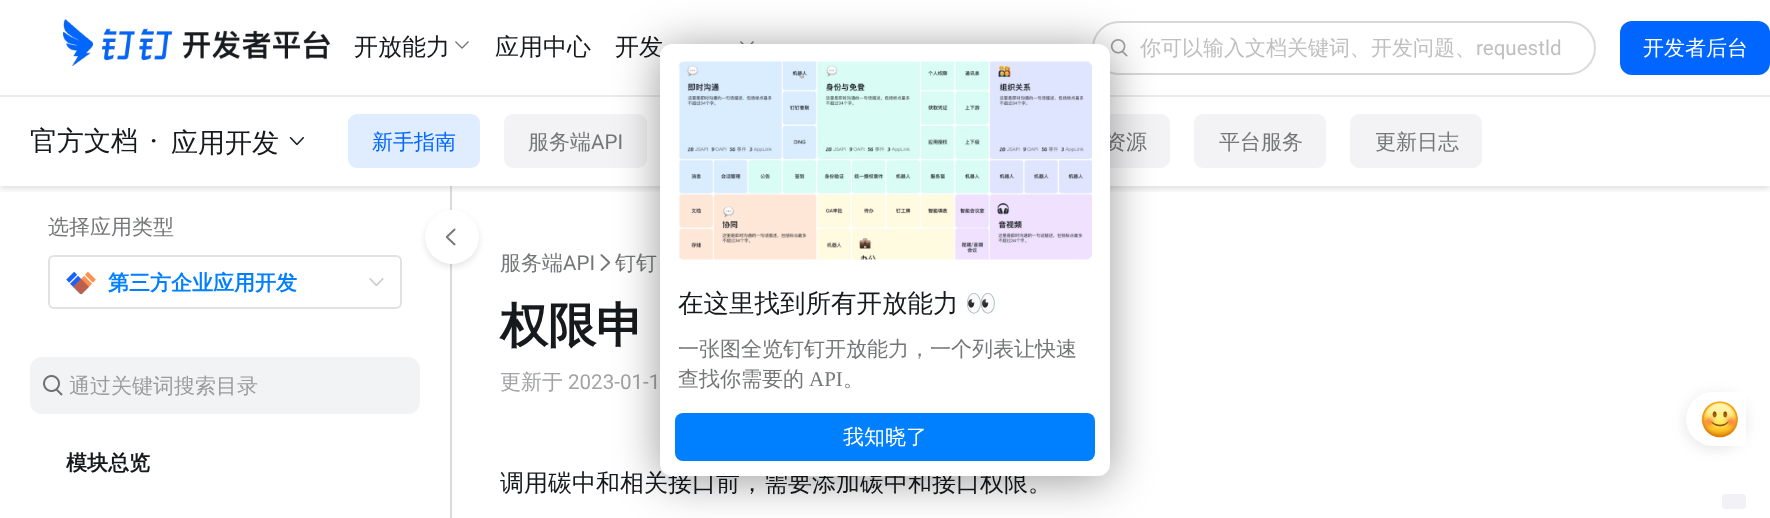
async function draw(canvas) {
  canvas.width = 1770
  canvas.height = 518
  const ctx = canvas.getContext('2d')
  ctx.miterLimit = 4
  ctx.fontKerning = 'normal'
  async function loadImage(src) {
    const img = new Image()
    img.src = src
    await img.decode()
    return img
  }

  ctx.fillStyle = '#fff'
  ctx.fillRect(0, 0, 1770, 518)
  ctx.fillStyle = '#f6f6f6'
  ctx.fillRect(450, 186, 2, 332)
  ctx.save()
  ctx.beginPath()
  ctx.rect(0, 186, 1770, 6)
  ctx.clip()
  ctx.fillStyle = '#0000001f'
  ctx.filter = 'blur(3px)'
  ctx.beginPath()
  ctx.rect(0, 99, 1770, 90)
  ctx.fill()
  ctx.filter = 'none'
  ctx.restore()
  ctx.fillStyle = '#eaebed'
  ctx.fillRect(0, 95, 1770, 2)
  ctx.drawImage(await loadImage('image0.png'), 63, 19, 268, 47)
  ctx.font = '500 24px WenQuanYi Zen Hei'
  ctx.fillStyle = '#171a1d'
  ctx.fillText('开放能力', 354, 55)
  ctx.drawImage(await loadImage('image1.png'), 455, 41, 14, 8)
  ctx.fillText('应用中心', 495, 55)
  ctx.fillText('开发', 615, 55)
  ctx.drawImage(await loadImage('image2.png'), 740, 41, 14, 3)
  ctx.beginPath()
  ctx.roundRect(1093, 22, 502, 52, 26)
  ctx.strokeStyle = '#d9d9d9'
  ctx.lineWidth = 2
  ctx.stroke()
  ctx.drawImage(await loadImage('image3.png'), 1110, 39, 18, 18)
  ctx.font = '500 21px WenQuanYi Zen Hei'
  ctx.fillStyle = '#bfbfbf'
  ctx.fillText('你可以输入文档关键词、开发问题、', 1140, 55)
  ctx.font = '21px Roboto'
  ctx.fillText('requestld', 1476, 55)
  ctx.fillStyle = '#06f'
  ctx.beginPath()
  ctx.roundRect(1620, 21, 150, 54, 12)
  ctx.fill()
  ctx.font = '500 21px WenQuanYi Zen Hei'
  ctx.fillStyle = '#fff'
  ctx.fillText('开发者后台', 1643, 55)
  ctx.font = '500 27px WenQuanYi Zen Hei'
  ctx.fillStyle = '#171a1d'
  ctx.fillText('官方文档', 30, 150)
  ctx.font = '500 27px Roboto'
  ctx.fillText('·', 150, 150)
  ctx.font = '500 27px WenQuanYi Zen Hei'
  ctx.fillText('应用开发', 171, 152)
  ctx.drawImage(await loadImage('image4.png'), 289, 137, 15, 8)
  ctx.fillStyle = '#e0edff'
  ctx.beginPath()
  ctx.roundRect(348, 114, 132, 54, 9)
  ctx.fill()
  ctx.font = '500 21px WenQuanYi Zen Hei'
  ctx.fillStyle = '#06f'
  ctx.fillText('新手指南', 372, 149)
  ctx.fillStyle = '#f3f3f5'
  ctx.beginPath()
  ctx.roundRect(504, 114, 143, 54, 9)
  ctx.fill()
  ctx.fillStyle = '#747677'
  ctx.fillText('服务端', 528, 149)
  ctx.font = '21px Roboto'
  ctx.fillText('API', 591, 149)
  ctx.fillStyle = '#f3f3f5'
  ctx.beginPath()
  ctx.roundRect(1017, 114, 153, 54, 9)
  ctx.fill()
  ctx.font = '500 21px WenQuanYi Zen Hei'
  ctx.fillStyle = '#747677'
  ctx.fillText('资源', 1105, 149)
  ctx.fillStyle = '#f3f3f5'
  ctx.beginPath()
  ctx.roundRect(1194, 114, 132, 54, 9)
  ctx.fill()
  ctx.fillStyle = '#747677'
  ctx.fillText('平台服务', 1219, 149)
  ctx.fillStyle = '#f3f3f5'
  ctx.beginPath()
  ctx.roundRect(1350, 114, 132, 54, 9)
  ctx.fill()
  ctx.fillStyle = '#747677'
  ctx.fillText('更新日志', 1375, 149)
  ctx.fillText('选择应用类型', 48, 234)
  ctx.beginPath()
  ctx.roundRect(49, 256, 352, 52, 5)
  ctx.strokeStyle = '#e0e2e4'
  ctx.stroke()
  ctx.drawImage(await loadImage('image5.png'), 66, 271, 30, 24)
  ctx.font = 'bold 21px WenQuanYi Zen Hei'
  ctx.fillStyle = '#007fff'
  ctx.fillText('第三方企业应用开发', 108, 290)
  ctx.drawImage(await loadImage('image6.png'), 369, 278, 15, 8)
  ctx.fillStyle = '#f2f3f4'
  ctx.beginPath()
  ctx.roundRect(30, 357, 390, 57, 12)
  ctx.fill()
  ctx.drawImage(await loadImage('image7.png'), 43, 375, 20, 21)
  ctx.font = '500 21px WenQuanYi Zen Hei'
  ctx.fillStyle = '#9a9c9e'
  ctx.fillText('通过关键词搜索目录', 69, 393)
  ctx.font = 'bold 21px WenQuanYi Zen Hei'
  ctx.fillStyle = '#171a1d'
  ctx.fillText('模块总览', 66, 470)
  ctx.fillStyle = '#7e868e3d'
  ctx.fillRect(450, 186, 2, 332)
  ctx.fillStyle = '#0000001a'
  ctx.filter = 'blur(3px)'
  ctx.beginPath()
  ctx.roundRect(425, 213, 54, 54, 27)
  ctx.fill()
  ctx.filter = 'none'
  ctx.fillStyle = '#fff'
  ctx.beginPath()
  ctx.arc(452, 237, 27, 0, 2 * Math.PI)
  ctx.fill()
  ctx.drawImage(await loadImage('image8.png'), 446, 228, 10, 18)
  ctx.font = '500 21px WenQuanYi Zen Hei'
  ctx.fillStyle = '#747677'
  ctx.fillText('服务端', 500, 270)
  ctx.font = '21px Roboto'
  ctx.fillText('API', 563, 270)
  ctx.drawImage(await loadImage('image9.png'), 600, 254, 11, 17)
  ctx.font = '500 21px WenQuanYi Zen Hei'
  ctx.fillText('钉钉', 615, 270)
  ctx.font = 'bold 48px WenQuanYi Zen Hei'
  ctx.fillStyle = '#171a1d'
  ctx.fillText('权限申', 500, 342)
  ctx.font = '500 21px WenQuanYi Zen Hei'
  ctx.fillStyle = '#a2a3a5'
  ctx.fillText('更新于', 500, 389)
  ctx.font = '21px Roboto'
  ctx.fillText('2023-01-1', 568, 389)
  ctx.font = '500 24px WenQuanYi Zen Hei'
  ctx.fillStyle = '#171a1d'
  ctx.fillText('调用碳中和相关接口前，需要添加碳中和接口权限。', 500, 491)
  ctx.fillStyle = '#0000001a'
  ctx.filter = 'blur(7.5px)'
  ctx.beginPath()
  ctx.roundRect(1686, 395, 60, 54, 27)
  ctx.fill()
  ctx.filter = 'none'
  ctx.fillStyle = '#fff'
  ctx.beginPath()
  ctx.roundRect(1686, 392, 60, 54, [27, 0, 0, 27])
  ctx.fill()
  ctx.drawImage(await loadImage('image10.png'), 1701, 401, 37, 37)
  ctx.fillStyle = '#f2f2f6'
  ctx.beginPath()
  ctx.roundRect(1722, 494, 24, 15, 3)
  ctx.fill()
  ctx.fillStyle = '#00000066'
  ctx.filter = 'blur(22.5px)'
  ctx.beginPath()
  ctx.roundRect(660, 48, 450, 432, 12)
  ctx.fill()
  ctx.filter = 'none'
  ctx.fillStyle = '#fff'
  ctx.beginPath()
  ctx.roundRect(660, 44, 450, 432, 12)
  ctx.fill()
  ctx.drawImage(await loadImage('image11.png'), 678, 61, 414, 199)
  ctx.font = '500 25.5px WenQuanYi Zen Hei'
  ctx.fillStyle = '#171a1d'
  ctx.fillText('在这里找到所有开放能力', 678, 312)
  ctx.font = '25.5px Noto Color Emoji'
  ctx.fillText('👀', 965, 312)
  ctx.font = '500 21px WenQuanYi Zen Hei'
  ctx.fillStyle = '#747677'
  ctx.fillText('一张图全览钉钉开放能力，一个列表让快速', 678, 356)
  ctx.fillText('查找你需要的', 678, 386)
  ctx.font = '21px Liberation Serif'
  ctx.fillText('API', 809, 386)
  ctx.font = '500 21px WenQuanYi Zen Hei'
  ctx.fillText('。', 843, 386)
  ctx.fillStyle = '#007fff'
  ctx.beginPath()
  ctx.roundRect(675, 413, 420, 48, 8)
  ctx.fill()
  ctx.fillStyle = '#fff'
  ctx.fillText('我知晓了', 843, 444)
}

draw(document.querySelector('canvas'))
